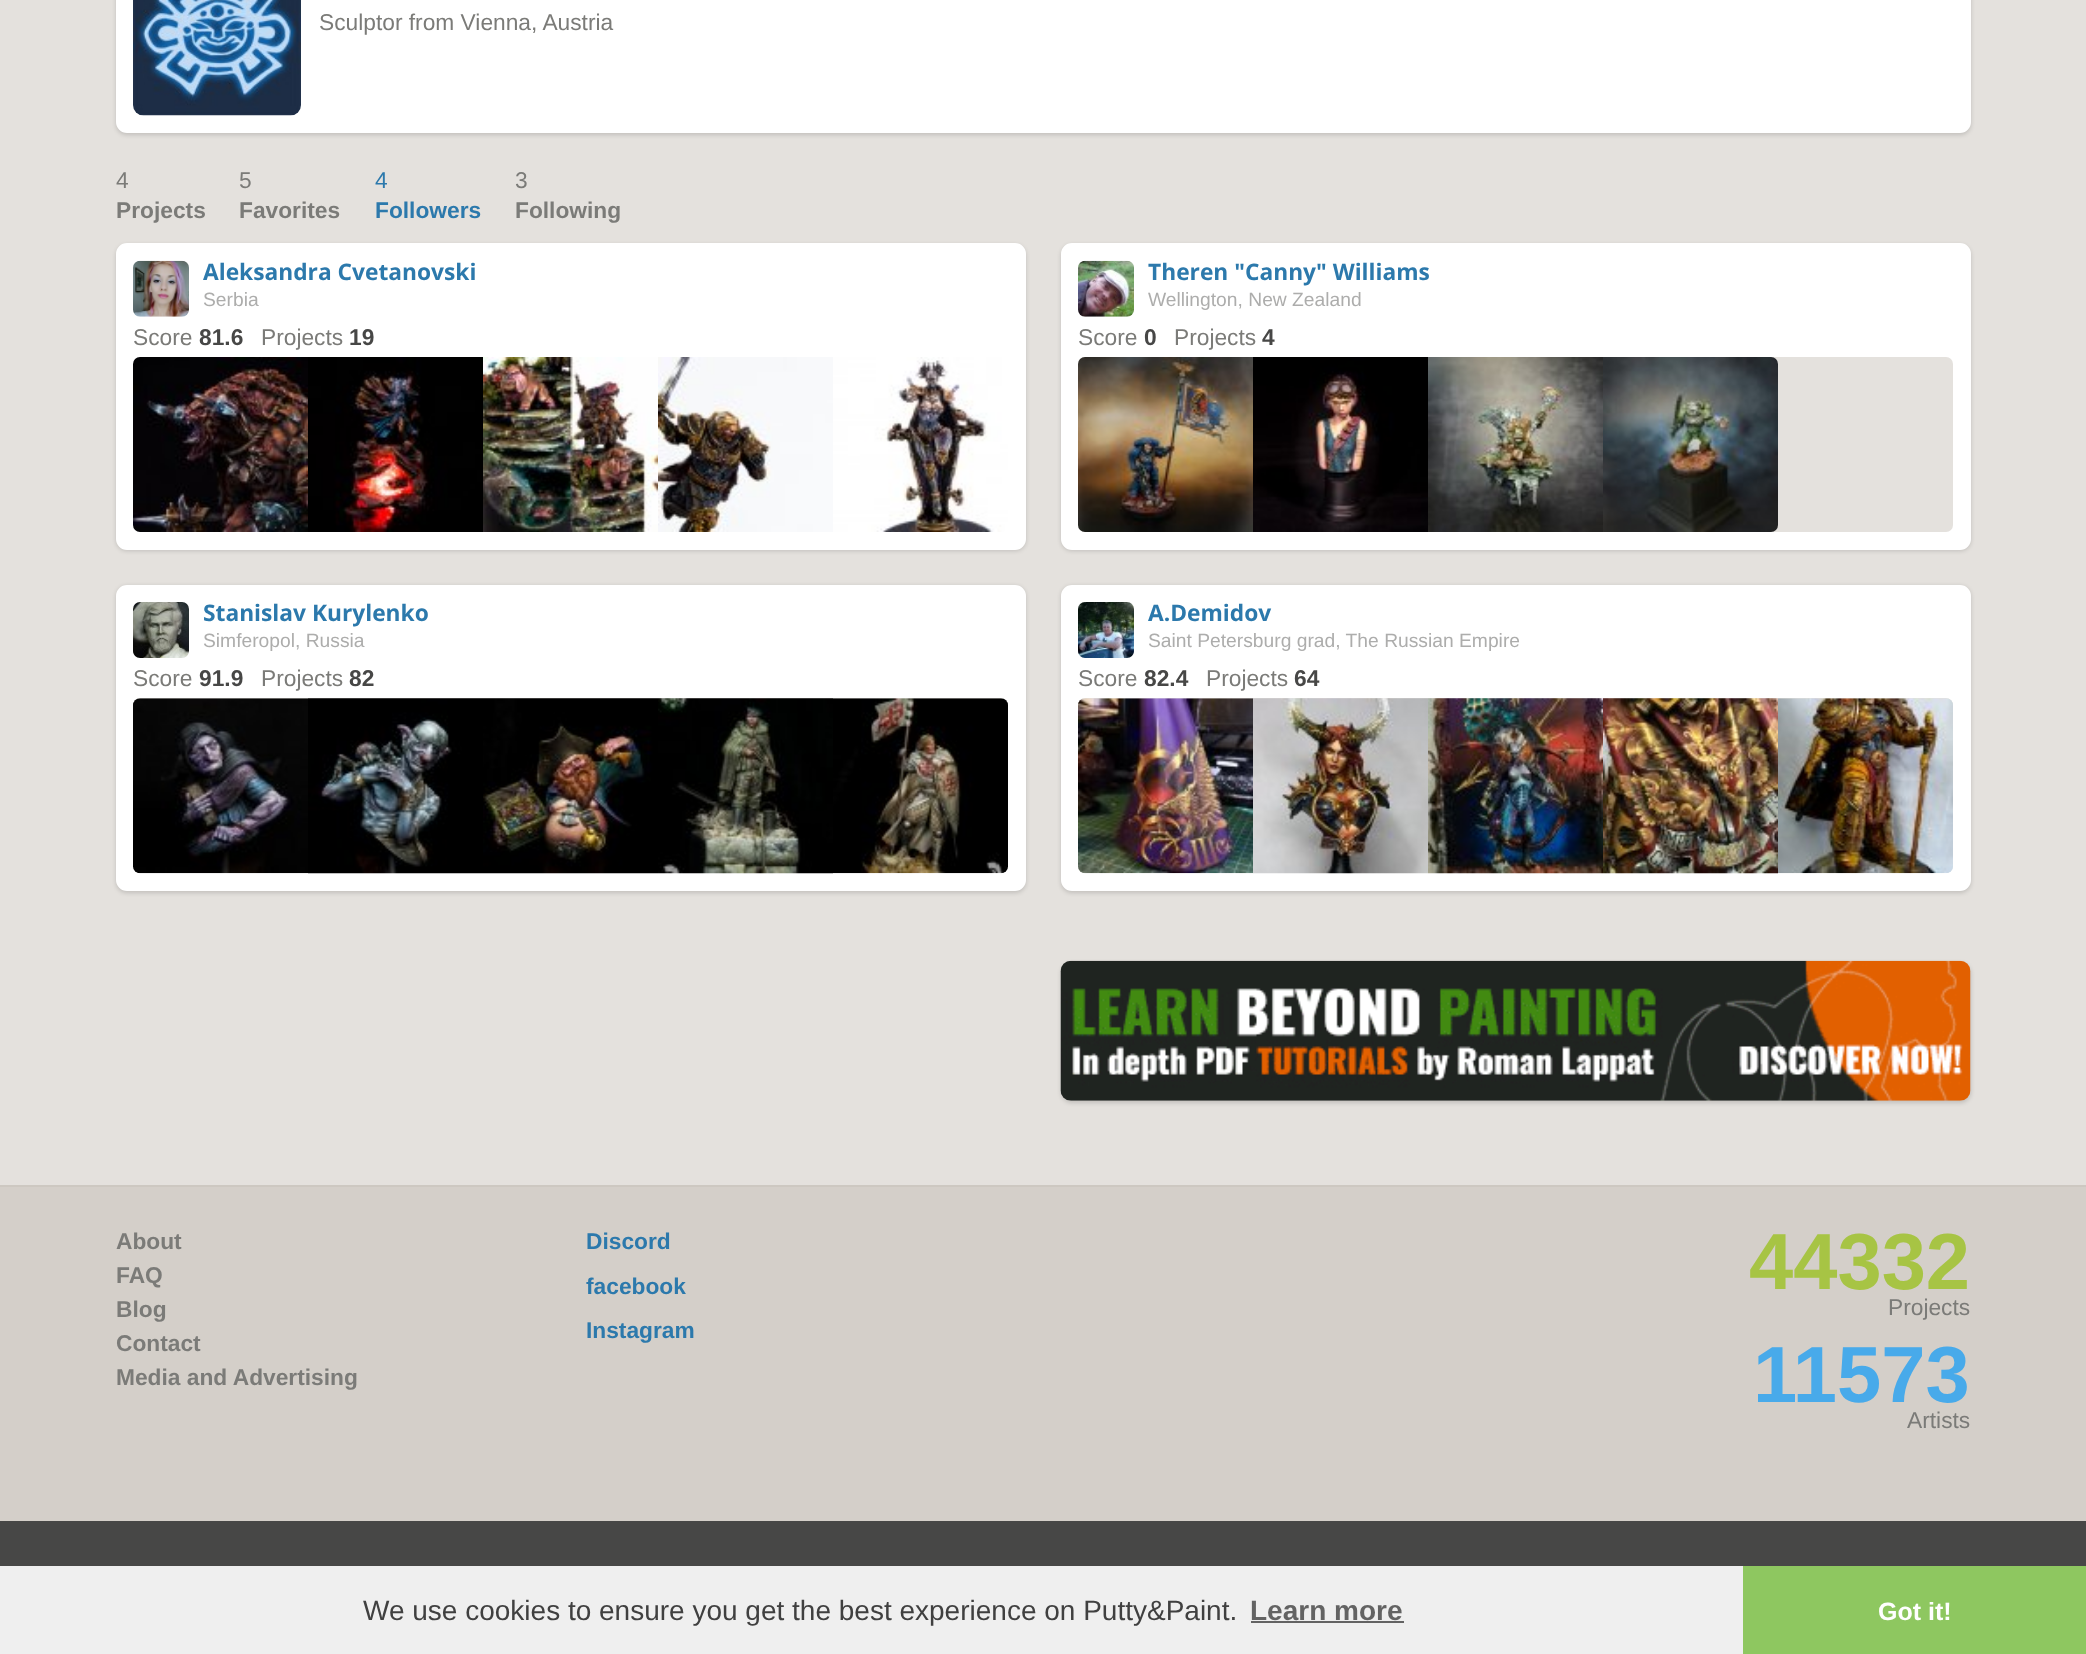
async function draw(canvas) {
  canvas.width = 2086
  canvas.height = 1654
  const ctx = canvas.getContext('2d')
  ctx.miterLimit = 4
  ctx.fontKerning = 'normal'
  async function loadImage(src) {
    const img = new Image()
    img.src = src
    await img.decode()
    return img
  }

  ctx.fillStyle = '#e4e1dd'
  ctx.fillRect(0, 0, 2086, 1654)
  ctx.fillStyle = '#00000026'
  ctx.filter = 'blur(2px)'
  ctx.beginPath()
  ctx.roundRect(116, -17, 1855, 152, 11)
  ctx.fill()
  ctx.filter = 'none'
  ctx.fillStyle = '#fff'
  ctx.beginPath()
  ctx.roundRect(117, -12, 1853, 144, 10)
  ctx.fill()
  ctx.strokeStyle = '#fff'
  ctx.lineWidth = 2
  ctx.stroke()
  ctx.drawImage(await loadImage('image0.png'), 133, 0, 168, 116)
  ctx.font = '22.75px Liberation Sans'
  ctx.fillStyle = '#7b7b78'
  ctx.fillText('Sculptor from Vienna, Austria', 319, 30)
  ctx.fillText('4', 116, 188)
  ctx.font = 'bold 22.75px Liberation Sans'
  ctx.fillText('Projects', 116, 218)
  ctx.font = '22.75px Liberation Sans'
  ctx.fillText('5', 239, 188)
  ctx.font = 'bold 22.75px Liberation Sans'
  ctx.fillText('Favorites', 239, 218)
  ctx.font = '22.75px Liberation Sans'
  ctx.fillStyle = '#2c79ac'
  ctx.fillText('4', 375, 188)
  ctx.font = 'bold 22.75px Liberation Sans'
  ctx.fillText('Followers', 375, 218)
  ctx.font = '22.75px Liberation Sans'
  ctx.fillStyle = '#7b7b78'
  ctx.fillText('3', 515, 188)
  ctx.font = 'bold 22.75px Liberation Sans'
  ctx.fillText('Following', 515, 218)
  ctx.fillStyle = '#00000026'
  ctx.filter = 'blur(2px)'
  ctx.beginPath()
  ctx.roundRect(116, 245, 910, 306, 11)
  ctx.fill()
  ctx.filter = 'none'
  ctx.fillStyle = '#fff'
  ctx.beginPath()
  ctx.roundRect(117, 244, 908, 305, 10)
  ctx.fill()
  ctx.stroke()
  ctx.drawImage(await loadImage('image1.png'), 133, 260, 56, 57)
  ctx.font = 'bold 22.75px Open Sans'
  ctx.fillStyle = '#2c79ac'
  ctx.fillText('Aleksandra Cvetanovski', 203, 280)
  ctx.font = '19.25px Liberation Sans'
  ctx.fillStyle = '#adadac'
  ctx.fillText('Serbia', 203, 306)
  ctx.font = '22.75px Liberation Sans'
  ctx.fillStyle = '#7b7b78'
  ctx.fillText('Score', 133, 345)
  ctx.font = 'bold 22.75px Liberation Sans'
  ctx.fillStyle = '#474746'
  ctx.fillText('81.6', 199, 345)
  ctx.font = '22.75px Liberation Sans'
  ctx.fillStyle = '#7b7b78'
  ctx.fillText('Projects', 261, 345)
  ctx.font = 'bold 22.75px Liberation Sans'
  ctx.fillStyle = '#474746'
  ctx.fillText('19', 349, 345)
  ctx.drawImage(await loadImage('image2.png'), 133, 357, 175, 175)
  ctx.drawImage(await loadImage('image3.png'), 308, 357, 175, 175)
  ctx.drawImage(await loadImage('image4.png'), 483, 357, 175, 175)
  ctx.drawImage(await loadImage('image5.png'), 658, 357, 175, 175)
  ctx.drawImage(await loadImage('image6.png'), 833, 357, 175, 175)
  ctx.fillStyle = '#00000026'
  ctx.filter = 'blur(2px)'
  ctx.beginPath()
  ctx.roundRect(1061, 245, 910, 306, 11)
  ctx.fill()
  ctx.filter = 'none'
  ctx.fillStyle = '#fff'
  ctx.beginPath()
  ctx.roundRect(1062, 244, 908, 305, 10)
  ctx.fill()
  ctx.stroke()
  ctx.drawImage(await loadImage('image7.png'), 1078, 260, 56, 57)
  ctx.font = 'bold 22.75px Open Sans'
  ctx.fillStyle = '#2c79ac'
  ctx.fillText('Theren "Canny" Williams', 1148, 280)
  ctx.font = '19.25px Liberation Sans'
  ctx.fillStyle = '#adadac'
  ctx.fillText('Wellington, New Zealand', 1148, 306)
  ctx.font = '22.75px Liberation Sans'
  ctx.fillStyle = '#7b7b78'
  ctx.fillText('Score', 1078, 345)
  ctx.font = 'bold 22.75px Liberation Sans'
  ctx.fillStyle = '#474746'
  ctx.fillText('0', 1144, 345)
  ctx.font = '22.75px Liberation Sans'
  ctx.fillStyle = '#7b7b78'
  ctx.fillText('Projects', 1174, 345)
  ctx.font = 'bold 22.75px Liberation Sans'
  ctx.fillStyle = '#474746'
  ctx.fillText('4', 1262, 345)
  ctx.fillStyle = '#e4e1dd'
  ctx.beginPath()
  ctx.roundRect(1078, 357, 875, 175, 7)
  ctx.fill()
  ctx.drawImage(await loadImage('image8.png'), 1078, 357, 175, 175)
  ctx.drawImage(await loadImage('image9.png'), 1253, 357, 175, 175)
  ctx.drawImage(await loadImage('image10.png'), 1428, 357, 175, 175)
  ctx.drawImage(await loadImage('image11.png'), 1603, 357, 175, 175)
  ctx.fillStyle = '#00000026'
  ctx.filter = 'blur(2px)'
  ctx.beginPath()
  ctx.roundRect(116, 586, 910, 307, 11)
  ctx.fill()
  ctx.filter = 'none'
  ctx.fillStyle = '#fff'
  ctx.beginPath()
  ctx.roundRect(117, 586, 908, 304, 10)
  ctx.fill()
  ctx.stroke()
  ctx.drawImage(await loadImage('image12.png'), 133, 602, 56, 56)
  ctx.font = 'bold 22.75px Open Sans'
  ctx.fillStyle = '#2c79ac'
  ctx.fillText('Stanislav Kurylenko', 203, 621)
  ctx.font = '19.25px Liberation Sans'
  ctx.fillStyle = '#adadac'
  ctx.fillText('Simferopol, Russia', 203, 647)
  ctx.font = '22.75px Liberation Sans'
  ctx.fillStyle = '#7b7b78'
  ctx.fillText('Score', 133, 686)
  ctx.font = 'bold 22.75px Liberation Sans'
  ctx.fillStyle = '#474746'
  ctx.fillText('91.9', 199, 686)
  ctx.font = '22.75px Liberation Sans'
  ctx.fillStyle = '#7b7b78'
  ctx.fillText('Projects', 261, 686)
  ctx.font = 'bold 22.75px Liberation Sans'
  ctx.fillStyle = '#474746'
  ctx.fillText('82', 349, 686)
  ctx.fillStyle = '#e4e1dd'
  ctx.beginPath()
  ctx.roundRect(133, 698, 875, 175, 7)
  ctx.fill()
  ctx.drawImage(await loadImage('image13.png'), 133, 698, 175, 176)
  ctx.drawImage(await loadImage('image14.png'), 308, 698, 175, 176)
  ctx.drawImage(await loadImage('image15.png'), 483, 698, 175, 176)
  ctx.drawImage(await loadImage('image16.png'), 658, 698, 175, 176)
  ctx.drawImage(await loadImage('image17.png'), 833, 698, 175, 176)
  ctx.fillStyle = '#00000026'
  ctx.filter = 'blur(2px)'
  ctx.beginPath()
  ctx.roundRect(1061, 586, 910, 307, 11)
  ctx.fill()
  ctx.filter = 'none'
  ctx.fillStyle = '#fff'
  ctx.beginPath()
  ctx.roundRect(1062, 586, 908, 304, 10)
  ctx.fill()
  ctx.stroke()
  ctx.drawImage(await loadImage('image18.png'), 1078, 602, 56, 56)
  ctx.font = 'bold 22.75px Open Sans'
  ctx.fillStyle = '#2c79ac'
  ctx.fillText('A.Demidov', 1148, 621)
  ctx.font = '19.25px Liberation Sans'
  ctx.fillStyle = '#adadac'
  ctx.fillText('Saint Petersburg grad, The Russian Empire', 1148, 647)
  ctx.font = '22.75px Liberation Sans'
  ctx.fillStyle = '#7b7b78'
  ctx.fillText('Score', 1078, 686)
  ctx.font = 'bold 22.75px Liberation Sans'
  ctx.fillStyle = '#474746'
  ctx.fillText('82.4', 1144, 686)
  ctx.font = '22.75px Liberation Sans'
  ctx.fillStyle = '#7b7b78'
  ctx.fillText('Projects', 1206, 686)
  ctx.font = 'bold 22.75px Liberation Sans'
  ctx.fillStyle = '#474746'
  ctx.fillText('64', 1294, 686)
  ctx.fillStyle = '#e4e1dd'
  ctx.beginPath()
  ctx.roundRect(1078, 698, 875, 175, 7)
  ctx.fill()
  ctx.drawImage(await loadImage('image19.png'), 1078, 698, 175, 176)
  ctx.drawImage(await loadImage('image20.png'), 1253, 698, 175, 176)
  ctx.drawImage(await loadImage('image21.png'), 1428, 698, 175, 176)
  ctx.drawImage(await loadImage('image22.png'), 1603, 698, 175, 176)
  ctx.drawImage(await loadImage('image23.png'), 1778, 698, 175, 176)
  ctx.fillStyle = '#00000026'
  ctx.filter = 'blur(2px)'
  ctx.beginPath()
  ctx.roundRect(1061, 963, 910, 140, 11)
  ctx.fill()
  ctx.filter = 'none'
  ctx.drawImage(await loadImage('image24.png'), 1060, 960, 911, 141)
  ctx.fillStyle = '#d4cfc9'
  ctx.fillRect(0, 1187, 2086, 334)
  ctx.fillStyle = '#cdc8c1'
  ctx.fillRect(0, 1185, 2086, 2)
  ctx.fillStyle = '#7b7b78'
  ctx.fillText('About', 116, 1249)
  ctx.fillText('FAQ', 116, 1283)
  ctx.fillText('Blog', 116, 1317)
  ctx.fillText('Contact', 116, 1351)
  ctx.fillText('Media and Advertising', 116, 1385)
  ctx.fillStyle = '#2c79ac'
  ctx.fillText('Discord', 586, 1249)
  ctx.fillText('facebook', 586, 1294)
  ctx.fillText('Instagram', 586, 1338)
  ctx.font = 'bold 79.5px Liberation Sans'
  ctx.fillStyle = '#a7c444'
  ctx.fillText('44332', 1749, 1289)
  ctx.font = '22.75px Liberation Sans'
  ctx.fillStyle = '#7b7b78'
  ctx.fillText('Projects', 1888, 1315)
  ctx.font = 'bold 79.5px Liberation Sans'
  ctx.fillStyle = '#48aaea'
  ctx.fillText('11573', 1753, 1402)
  ctx.font = '22.75px Liberation Sans'
  ctx.fillStyle = '#7b7b78'
  ctx.fillText('Artists', 1907, 1428)
  ctx.fillStyle = '#474746'
  ctx.fillRect(0, 1521, 2086, 45)
  ctx.fillStyle = '#efefef'
  ctx.fillRect(0, 1566, 1743, 88)
  ctx.font = '28px Liberation Sans'
  ctx.fillStyle = '#404040'
  ctx.fillText('We use cookies to ensure you get the best experience on Putty&Paint.', 363, 1620)
  ctx.font = 'bold 28px Liberation Sans'
  ctx.fillStyle = '#636363'
  ctx.fillText('Learn more', 1250, 1620)
  ctx.fillRect(1251, 1621, 153, 2)
  ctx.fillStyle = '#8ec760'
  ctx.fillRect(1743, 1566, 343, 88)
  ctx.font = 'bold 25px Liberation Sans'
  ctx.fillStyle = '#fff'
  ctx.fillText('Got it!', 1878, 1620)
}

draw(document.querySelector('canvas'))
